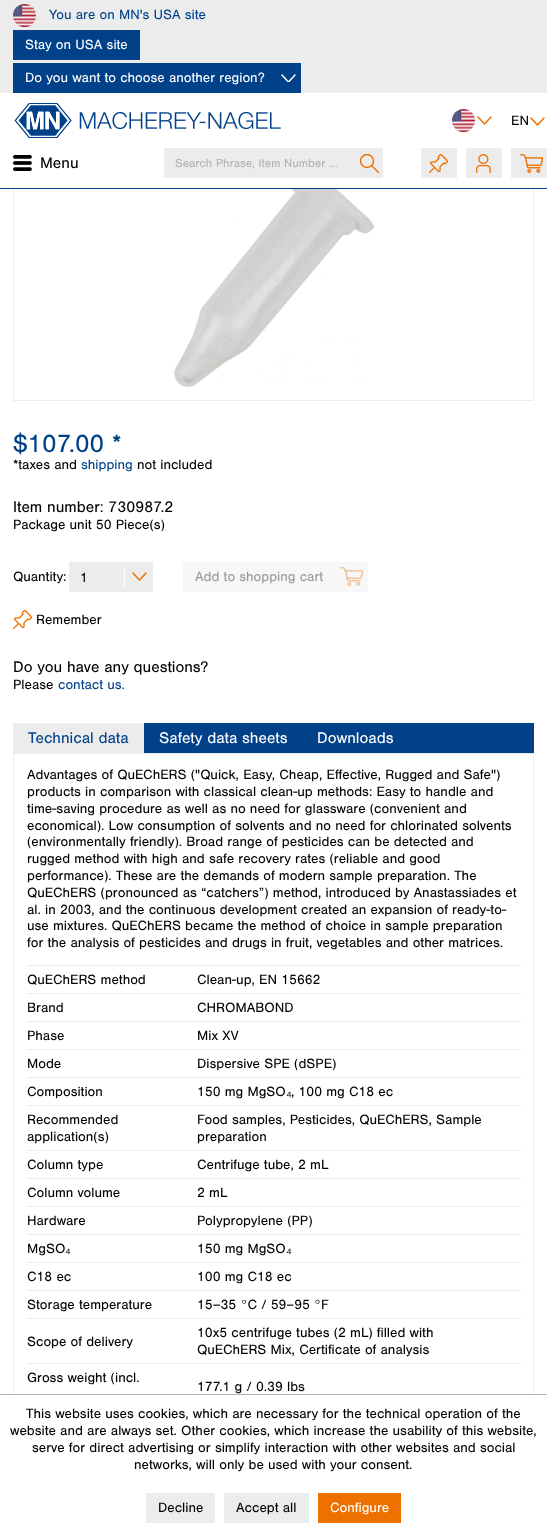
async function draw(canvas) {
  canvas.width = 547
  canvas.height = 1533
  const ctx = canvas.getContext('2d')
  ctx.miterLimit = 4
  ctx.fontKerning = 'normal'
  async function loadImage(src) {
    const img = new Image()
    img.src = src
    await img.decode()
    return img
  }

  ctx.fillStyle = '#fff'
  ctx.fillRect(0, 0, 547, 1533)
  ctx.strokeStyle = '#ececed'
  ctx.strokeRect(13.5, 151.5, 520, 249)
  ctx.fillRect(13, 151, 521, 37)
  ctx.fillStyle = '#004189'
  ctx.fillRect(0, 188, 547, 1)
  ctx.fillStyle = '#ececed'
  ctx.fillRect(0, 0, 547, 93)
  ctx.drawImage(await loadImage('image0.png'), 13, 4, 23, 23)
  ctx.font = '14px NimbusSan'
  ctx.fillStyle = '#004189'
  ctx.fillText('You are on MN\'s USA site', 49, 19)
  ctx.fillRect(13, 30, 127, 30)
  ctx.fillStyle = '#fff'
  ctx.fillText('Stay on USA site', 25, 49)
  ctx.fillStyle = '#004189'
  ctx.fillRect(13, 63, 288, 30)
  ctx.fillStyle = '#fff'
  ctx.fillText('Do you want to choose another region?', 25, 82)
  ctx.save()
  ctx.beginPath()
  ctx.rect(281, 74, 15, 8)
  ctx.clip()
  ctx.beginPath()
  ctx.moveTo(295, 75)
  ctx.lineTo(288.5, 82)
  ctx.lineTo(282, 75)
  ctx.strokeStyle = '#fff'
  ctx.lineWidth = 1.5
  ctx.lineCap = 'round'
  ctx.lineJoin = 'round'
  ctx.stroke()
  ctx.restore()
  ctx.drawImage(await loadImage('image1.png'), 452, 109, 23, 23)
  ctx.beginPath()
  ctx.moveTo(491, 117)
  ctx.lineTo(484.5, 124)
  ctx.lineTo(478, 117)
  ctx.strokeStyle = '#ee7100'
  ctx.lineWidth = 1.5
  ctx.lineCap = 'round'
  ctx.lineJoin = 'round'
  ctx.stroke()
  ctx.fillStyle = '#000'
  ctx.fillText('EN', 511, 125)
  ctx.beginPath()
  ctx.moveTo(544, 118)
  ctx.lineTo(537.5, 125)
  ctx.lineTo(531, 118)
  ctx.stroke()
  ctx.drawImage(await loadImage('image2.png'), 14, 103, 267, 35)
  ctx.drawImage(await loadImage('image3.png'), 13, 155, 19, 16)
  ctx.font = '16px NimbusSan'
  ctx.fillText('Menu', 40, 168)
  ctx.fillStyle = '#ececed'
  ctx.fillRect(164, 148, 219, 30)
  ctx.font = '12px NimbusSan'
  ctx.fillStyle = '#b1b2b3'
  ctx.fillText('Search Phrase, Item Number ...', 175, 167)
  ctx.save()
  ctx.beginPath()
  ctx.rect(360, 154, 19, 19)
  ctx.clip()
  ctx.beginPath()
  ctx.arc(367, 161, 6.5, 0, 2 * Math.PI)
  ctx.lineWidth = 1.4
  ctx.stroke()
  ctx.restore()
  ctx.beginPath()
  ctx.moveTo(372, 166)
  ctx.lineTo(378.5, 172.5)
  ctx.lineWidth = 1.4
  ctx.lineJoin = 'miter'
  ctx.stroke()
  ctx.fillStyle = '#ececed'
  ctx.fillRect(421, 148, 36, 30)
  ctx.drawImage(await loadImage('image4.png'), 429, 154, 19, 19)
  ctx.fillRect(466, 148, 36, 30)
  ctx.drawImage(await loadImage('image5.png'), 476, 154, 15, 19)
  ctx.fillRect(511, 148, 36, 30)
  ctx.drawImage(await loadImage('image6.png'), 520, 154, 23, 19)
  ctx.drawImage(await loadImage('image7.png'), 174, 189, 200, 198)
  ctx.font = '26px NimbusSan'
  ctx.fillStyle = '#004189'
  ctx.fillText('$107.00 *', 13, 452)
  ctx.font = '14px NimbusSan'
  ctx.fillStyle = '#000'
  ctx.fillText('*taxes and', 13, 469)
  ctx.fillStyle = '#004189'
  ctx.fillText('shipping', 81, 469)
  ctx.fillStyle = '#000'
  ctx.fillText('not included', 137, 469)
  ctx.font = '16px NimbusSan'
  ctx.fillText('Item number: 730987.2', 13, 512)
  ctx.font = '14px NimbusSan'
  ctx.fillText('Package unit 50 Piece(s)', 13, 529)
  ctx.fillText('Quantity:', 13, 581)
  ctx.fillStyle = '#ececed'
  ctx.fillRect(69, 562, 84, 30)
  ctx.fillStyle = '#000'
  ctx.fillText('1', 80, 582)
  ctx.beginPath()
  ctx.moveTo(146, 573)
  ctx.lineTo(139.5, 580)
  ctx.lineTo(133, 573)
  ctx.lineWidth = 1.5
  ctx.lineJoin = 'round'
  ctx.stroke()
  ctx.fillStyle = '#fff'
  ctx.fillRect(124, 567, 1, 20)
  ctx.fillStyle = '#f7f7f8'
  ctx.fillRect(183, 562, 185, 30)
  ctx.fillStyle = '#999'
  ctx.fillText('Add to shopping cart', 195, 581)
  ctx.drawImage(await loadImage('image8.png'), 340, 567, 23, 19)
  ctx.drawImage(await loadImage('image9.png'), 13, 610, 19, 19)
  ctx.fillStyle = '#000'
  ctx.fillText('Remember', 36, 624)
  ctx.font = '16px NimbusSan'
  ctx.fillText('Do you have any questions?', 13, 672)
  ctx.font = '14px NimbusSan'
  ctx.fillText('Please', 13, 689)
  ctx.fillStyle = '#004189'
  ctx.fillText('contact us.', 58, 689)
  ctx.fillRect(144, 723, 390, 30)
  ctx.fillStyle = '#ececed'
  ctx.fillRect(13, 723, 131, 30)
  ctx.font = '16px NimbusSan'
  ctx.fillStyle = '#004189'
  ctx.fillText('Technical data', 28, 743)
  ctx.fillStyle = '#fff'
  ctx.fillText('Safety data sheets', 159, 743)
  ctx.fillText('Downloads', 317, 743)
  ctx.strokeStyle = '#ececed'
  ctx.lineWidth = 1
  ctx.lineJoin = 'miter'
  ctx.strokeRect(13.5, 753.5, 520, 724)
  ctx.font = '14px NimbusSan'
  ctx.fillStyle = '#000'
  ctx.fillText('Advantages of QuEChERS ("Quick, Easy, Cheap, Effective, Rugged and Safe")', 27, 779)
  ctx.fillText('products in comparison with classical clean-up methods: Easy to handle and', 27, 796)
  ctx.fillText('time-saving procedure as well as no need for glassware (convenient and', 27, 813)
  ctx.fillText('economical). Low consumption of solvents and no need for chlorinated solvents', 27, 830)
  ctx.fillText('(environmentally friendly). Broad range of pesticides can be detected and', 27, 846)
  ctx.fillText('rugged method with high and safe recovery rates (reliable and good', 27, 863)
  ctx.fillText('performance). These are the demands of modern sample preparation. The', 27, 880)
  ctx.fillText('QuEChERS (pronounced as “catchers”) method, introduced by Anastassiades et', 27, 897)
  ctx.fillText('al. in 2003, and the continuous development created an expansion of ready-to-', 27, 914)
  ctx.fillText('use mixtures. QuEChERS became the method of choice in sample preparation', 27, 930)
  ctx.fillText('for the analysis of pesticides and drugs in fruit, vegetables and other matrices.', 27, 947)
  ctx.fillStyle = '#ececed'
  ctx.fillRect(27, 965, 494, 1)
  ctx.fillStyle = '#000'
  ctx.fillText('QuEChERS method', 27, 984)
  ctx.fillText('Clean-up, EN 15662', 197, 984)
  ctx.fillStyle = '#ececed'
  ctx.fillRect(27, 993, 494, 1)
  ctx.fillStyle = '#000'
  ctx.fillText('Brand', 27, 1012)
  ctx.fillText('CHROMABOND', 197, 1012)
  ctx.fillStyle = '#ececed'
  ctx.fillRect(27, 1021, 494, 1)
  ctx.fillStyle = '#000'
  ctx.fillText('Phase', 27, 1040)
  ctx.fillText('Mix XV', 197, 1040)
  ctx.fillStyle = '#ececed'
  ctx.fillRect(27, 1049, 494, 1)
  ctx.fillStyle = '#000'
  ctx.fillText('Mode', 27, 1068)
  ctx.fillText('Dispersive SPE (dSPE)', 197, 1068)
  ctx.fillStyle = '#ececed'
  ctx.fillRect(27, 1077, 494, 1)
  ctx.fillStyle = '#000'
  ctx.fillText('Composition', 27, 1096)
  ctx.fillText('150 mg MgSO', 197, 1096)
  ctx.font = '14px Liberation Sans'
  ctx.fillText('₄', 286, 1096)
  ctx.font = '14px NimbusSan'
  ctx.fillText(', 100 mg C18 ec', 291, 1096)
  ctx.fillStyle = '#ececed'
  ctx.fillRect(27, 1105, 494, 1)
  ctx.fillStyle = '#000'
  ctx.fillText('Recommended', 27, 1124)
  ctx.fillText('application(s)', 27, 1141)
  ctx.fillText('Food samples, Pesticides, QuEChERS, Sample', 197, 1124)
  ctx.fillText('preparation', 197, 1141)
  ctx.fillStyle = '#ececed'
  ctx.fillRect(27, 1150, 494, 1)
  ctx.fillStyle = '#000'
  ctx.fillText('Column type', 27, 1169)
  ctx.fillText('Centrifuge tube, 2 mL', 197, 1169)
  ctx.fillStyle = '#ececed'
  ctx.fillRect(27, 1178, 494, 1)
  ctx.fillStyle = '#000'
  ctx.fillText('Column volume', 27, 1197)
  ctx.fillText('2 mL', 197, 1197)
  ctx.fillStyle = '#ececed'
  ctx.fillRect(27, 1206, 494, 1)
  ctx.fillStyle = '#000'
  ctx.fillText('Hardware', 27, 1225)
  ctx.fillText('Polypropylene (PP)', 197, 1225)
  ctx.fillStyle = '#ececed'
  ctx.fillRect(27, 1234, 494, 1)
  ctx.fillStyle = '#000'
  ctx.fillText('MgSO', 27, 1253)
  ctx.font = '14px Liberation Sans'
  ctx.fillText('₄', 65, 1253)
  ctx.font = '14px NimbusSan'
  ctx.fillText('150 mg MgSO', 197, 1253)
  ctx.font = '14px Liberation Sans'
  ctx.fillText('₄', 286, 1253)
  ctx.fillStyle = '#ececed'
  ctx.fillRect(27, 1262, 494, 1)
  ctx.font = '14px NimbusSan'
  ctx.fillStyle = '#000'
  ctx.fillText('C18 ec', 27, 1281)
  ctx.fillText('100 mg C18 ec', 197, 1281)
  ctx.fillStyle = '#ececed'
  ctx.fillRect(27, 1290, 494, 1)
  ctx.fillStyle = '#000'
  ctx.fillText('Storage temperature', 27, 1309)
  ctx.fillText('15–35 °C / 59–95 °F', 197, 1309)
  ctx.fillStyle = '#ececed'
  ctx.fillRect(27, 1318, 494, 1)
  ctx.fillStyle = '#000'
  ctx.fillText('Scope of delivery', 27, 1346)
  ctx.fillText('10x5 centrifuge tubes (2 mL) filled with', 197, 1337)
  ctx.fillText('QuEChERS Mix, Certificate of analysis', 197, 1354)
  ctx.fillStyle = '#ececed'
  ctx.fillRect(27, 1363, 494, 1)
  ctx.fillStyle = '#000'
  ctx.fillText('Gross weight (incl.', 27, 1382)
  ctx.fillText('177.1 g / 0.39 lbs', 197, 1391)
  ctx.fillStyle = '#fff'
  ctx.fillRect(13, 1395, 521, 83)
  ctx.fillStyle = '#b1b2b3'
  ctx.fillRect(0, 1394, 547, 1)
  ctx.fillStyle = '#000'
  ctx.fillText('This website uses cookies, which are necessary for the technical operation of the', 26, 1418)
  ctx.fillText('website and are always set. Other cookies, which increase the usability of this website,', 10, 1435)
  ctx.fillText('serve for direct advertising or simplify interaction with other websites and social', 32, 1452)
  ctx.fillText('networks, will only be used with your consent.', 134, 1469)
  ctx.fillStyle = '#ececed'
  ctx.fillRect(146, 1493, 69, 30)
  ctx.fillStyle = '#000'
  ctx.fillText('Decline', 158, 1512)
  ctx.fillStyle = '#ececed'
  ctx.fillRect(224, 1493, 85, 30)
  ctx.fillStyle = '#000'
  ctx.fillText('Accept all', 236, 1512)
  ctx.fillStyle = '#ee7100'
  ctx.fillRect(318, 1493, 83, 30)
  ctx.fillStyle = '#fff'
  ctx.fillText('Configure', 330, 1512)
}

draw(document.querySelector('canvas'))
